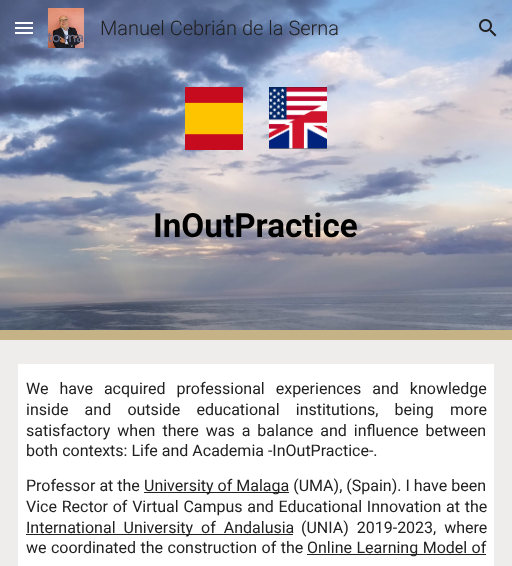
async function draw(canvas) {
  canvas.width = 512
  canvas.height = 566
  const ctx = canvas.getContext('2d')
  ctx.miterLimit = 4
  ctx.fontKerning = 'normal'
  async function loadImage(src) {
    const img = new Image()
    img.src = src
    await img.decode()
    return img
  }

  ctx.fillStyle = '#eeedeb'
  ctx.fillRect(0, 0, 512, 566)
  ctx.drawImage(await loadImage('image2.png'), 0, 0, 512, 330)
  ctx.fillStyle = '#fff'
  ctx.fillRect(15, 22, 18, 2)
  ctx.fillRect(15, 27, 18, 2)
  ctx.fillRect(15, 32, 18, 2)
  ctx.drawImage(await loadImage('image0.png'), 48, 8, 36, 40)
  ctx.font = '300 20px Roboto'
  ctx.fillStyle = '#212121'
  ctx.fillText('Manuel Cebrián de la Serna', 100, 35)
  ctx.drawImage(await loadImage('image1.png'), 479, 19, 18, 18)
  ctx.fillStyle = '#c5b287'
  ctx.fillRect(0, 330, 512, 10)
  ctx.drawImage(await loadImage('image3.png'), 185, 87, 58, 63)
  ctx.drawImage(await loadImage('image4.png'), 269, 87, 58, 62)
  ctx.font = 'bold 33.25px Roboto'
  ctx.fillStyle = '#000'
  ctx.fillText('InOutPractice', 153, 237)
  ctx.fillStyle = '#fff'
  ctx.fillRect(18, 364, 476, 202)
  ctx.wordSpacing = '7px'
  ctx.font = '16px Roboto'
  ctx.fillStyle = '#212121'
  ctx.fillText('We have acquired professional experiences and knowledge', 26, 394)
  ctx.wordSpacing = '12.25px'
  ctx.fillText('inside and outside educational institutions, being more', 26, 415)
  ctx.wordSpacing = '3px'
  ctx.fillText('satisfactory when there was a balance and influence between', 26, 436)
  ctx.wordSpacing = '0px'
  ctx.fillText('both contexts: Life and Academia -InOutPractice-.', 26, 456)
  ctx.fillText('Professor at the', 26, 491)
  ctx.fillRect(144, 492, 145, 1)
  ctx.fillText('University of Malaga (UMA), (Spain). I have been', 144, 491)
  ctx.wordSpacing = '0.75px'
  ctx.fillText('Vice Rector of Virtual Campus and Educational Innovation at the', 26, 512)
  ctx.fillRect(26, 534, 267, 1)
  ctx.wordSpacing = '4px'
  ctx.fillText('International University of Andalusia', 26, 533)
  ctx.fillText('(UNIA) 2019-2023, where', 301, 533)
  ctx.wordSpacing = '0.5px'
  ctx.fillText('we coordinated the construction of the', 26, 553)
  ctx.fillRect(307, 554, 179, 1)
  ctx.fillText('Online Learning Model of', 307, 553)
  ctx.wordSpacing = '0px'
  ctx.font = '500 14px Google Sans'
  ctx.fillStyle = '#666b87'
  ctx.fillText('to ma', 47, 42)
}

draw(document.querySelector('canvas'))
